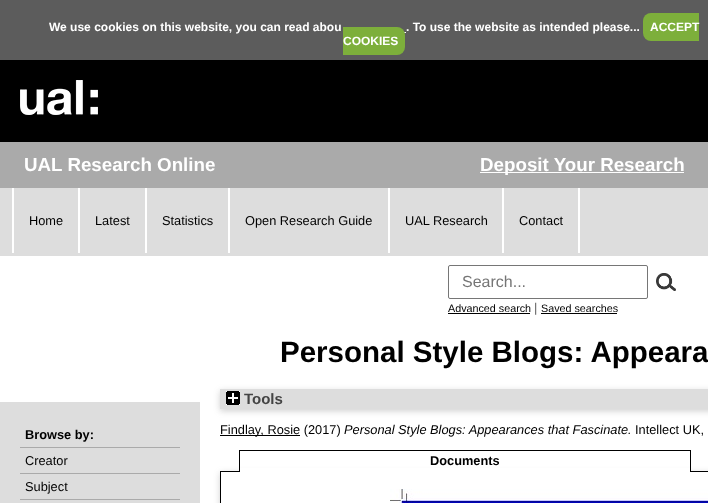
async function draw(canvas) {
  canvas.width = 708
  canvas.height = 503
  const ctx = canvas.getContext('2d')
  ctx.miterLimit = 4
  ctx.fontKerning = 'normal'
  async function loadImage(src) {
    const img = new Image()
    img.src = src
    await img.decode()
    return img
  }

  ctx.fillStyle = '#fff'
  ctx.fillRect(0, 0, 708, 503)
  ctx.fillStyle = '#5c5c5c'
  ctx.fillRect(0, 0, 708, 60)
  ctx.font = 'bold 12px Liberation Sans'
  ctx.fillStyle = '#fff'
  ctx.fillText('We use cookies on this website, you can read abou', 49, 31)
  ctx.fillText('. To use the website as intended please...', 406, 31)
  ctx.fillStyle = '#7daf3b'
  ctx.beginPath()
  ctx.roundRect(643, 13, 56, 28, [8, 0, 0, 8])
  ctx.fill()
  ctx.fillStyle = '#fff'
  ctx.fillText('ACCEPT', 650, 31)
  ctx.fillRect(404, 32, 2, 1)
  ctx.fillStyle = '#7daf3b'
  ctx.beginPath()
  ctx.roundRect(343, 27, 62, 28, [0, 8, 8, 0])
  ctx.fill()
  ctx.fillStyle = '#fff'
  ctx.fillText('COOKIES', 343, 45)
  ctx.fillStyle = '#000'
  ctx.fillRect(0, 60, 708, 82)
  ctx.drawImage(await loadImage('image0.png'), 20, 80, 78, 35)
  ctx.fillStyle = '#aaa'
  ctx.fillRect(0, 142, 708, 46)
  ctx.font = 'bold 18.75px Liberation Sans'
  ctx.fillStyle = '#fff'
  ctx.fillText('UAL Research Online', 24, 171)
  ctx.fillRect(480, 172, 204, 1)
  ctx.fillText('Deposit Your Research', 480, 171)
  ctx.fillStyle = '#ddd'
  ctx.fillRect(0, 188, 708, 68)
  ctx.fillStyle = '#fff'
  ctx.fillRect(12, 188, 2, 65)
  ctx.font = '12.8px Liberation Sans'
  ctx.fillStyle = '#000'
  ctx.fillText('Home', 29, 225)
  ctx.fillStyle = '#fff'
  ctx.fillRect(78, 188, 2, 65)
  ctx.fillStyle = '#000'
  ctx.fillText('Latest', 95, 225)
  ctx.fillStyle = '#fff'
  ctx.fillRect(145, 188, 2, 65)
  ctx.fillStyle = '#000'
  ctx.fillText('Statistics', 162, 225)
  ctx.fillStyle = '#fff'
  ctx.fillRect(228, 188, 2, 65)
  ctx.fillStyle = '#000'
  ctx.fillText('Open Research Guide', 245, 225)
  ctx.fillStyle = '#fff'
  ctx.fillRect(388, 188, 2, 65)
  ctx.fillStyle = '#000'
  ctx.fillText('UAL Research', 405, 225)
  ctx.fillStyle = '#fff'
  ctx.fillRect(578, 188, 2, 65)
  ctx.fillRect(502, 188, 2, 65)
  ctx.fillStyle = '#000'
  ctx.fillText('Contact', 519, 225)
  ctx.beginPath()
  ctx.roundRect(448.5, 265.5, 199, 33, 1.5)
  ctx.strokeStyle = '#767676'
  ctx.stroke()
  ctx.font = '16px Liberation Sans'
  ctx.fillStyle = '#757575'
  ctx.fillText('Search...', 462, 287)
  ctx.drawImage(await loadImage('image1.png'), 656, 273, 20, 18)
  ctx.font = '10.75px Liberation Sans'
  ctx.fillStyle = '#000'
  ctx.fillText('Advanced search', 448, 312)
  ctx.fillRect(448, 313, 82, 1)
  ctx.font = '12.8px Liberation Sans'
  ctx.fillStyle = '#606060'
  ctx.fillText('|', 534, 312)
  ctx.font = '10.75px Liberation Sans'
  ctx.fillStyle = '#000'
  ctx.fillText('Saved searches', 541, 312)
  ctx.fillRect(541, 313, 76, 1)
  ctx.font = 'bold 29.5px Liberation Sans'
  ctx.fillText('Personal Style Blogs: Appeara', 280, 362)
  ctx.fillStyle = '#ddd'
  ctx.fillRect(0, 402, 200, 101)
  ctx.fillStyle = '#aaa'
  ctx.fillRect(20, 447, 160, 1)
  ctx.font = 'bold 12.8px Liberation Sans'
  ctx.fillStyle = '#000'
  ctx.fillText('Browse by:', 25, 439)
  ctx.fillStyle = '#aaa'
  ctx.fillRect(20, 473, 160, 1)
  ctx.font = '12.8px Liberation Sans'
  ctx.fillStyle = '#000'
  ctx.fillText('Creator', 25, 465)
  ctx.fillStyle = '#aaa'
  ctx.fillRect(20, 499, 160, 1)
  ctx.fillStyle = '#000'
  ctx.fillText('Subject', 25, 491)
  ctx.fillStyle = '#6464644d'
  ctx.filter = 'blur(3px)'
  ctx.beginPath()
  ctx.rect(220, 391, 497, 20)
  ctx.fill()
  ctx.filter = 'none'
  ctx.fillStyle = '#ddd'
  ctx.fillRect(220, 389, 488, 20)
  ctx.drawImage(await loadImage('image2.png'), 226, 391, 14, 14)
  ctx.font = 'bold 15px Liberation Sans'
  ctx.fillStyle = '#444'
  ctx.fillText('Tools', 244, 404)
  ctx.fillStyle = '#000'
  ctx.fillRect(220, 435, 80, 1)
  ctx.font = '12.8px Liberation Sans'
  ctx.fillText('Findlay, Rosie (2017)', 220, 434)
  ctx.font = 'italic 12.8px Liberation Sans'
  ctx.fillText('Personal Style Blogs: Appearances that Fascinate.', 344, 434)
  ctx.font = '12.8px Liberation Sans'
  ctx.fillText('Intellect UK,', 635, 434)
  ctx.save()
  ctx.beginPath()
  ctx.moveTo(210, 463)
  ctx.lineTo(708, 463)
  ctx.lineTo(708, 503)
  ctx.lineTo(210, 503)
  ctx.closePath()
  ctx.moveTo(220, 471)
  ctx.lineTo(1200, 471)
  ctx.lineTo(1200, 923)
  ctx.lineTo(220, 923)
  ctx.closePath()
  ctx.clip('evenodd')
  ctx.fillStyle = '#6464644d'
  ctx.filter = 'blur(3px)'
  ctx.beginPath()
  ctx.rect(220, 473, 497, 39)
  ctx.fill()
  ctx.filter = 'none'
  ctx.restore()
  ctx.fillRect(220, 471, 1, 32)
  ctx.fillRect(220, 471, 488, 1)
  ctx.fillStyle = '#fff'
  ctx.fillRect(240, 468, 450, 4)
  ctx.fillStyle = '#000'
  ctx.fillRect(239, 450, 452, 1)
  ctx.fillRect(690, 450, 1, 22)
  ctx.fillRect(239, 450, 1, 22)
  ctx.font = 'bold 12.8px Liberation Sans'
  ctx.fillText('Documents', 430, 465)
  ctx.drawImage(await loadImage('image3.png'), 390, 489, 318, 14)
}

draw(document.querySelector('canvas'))
